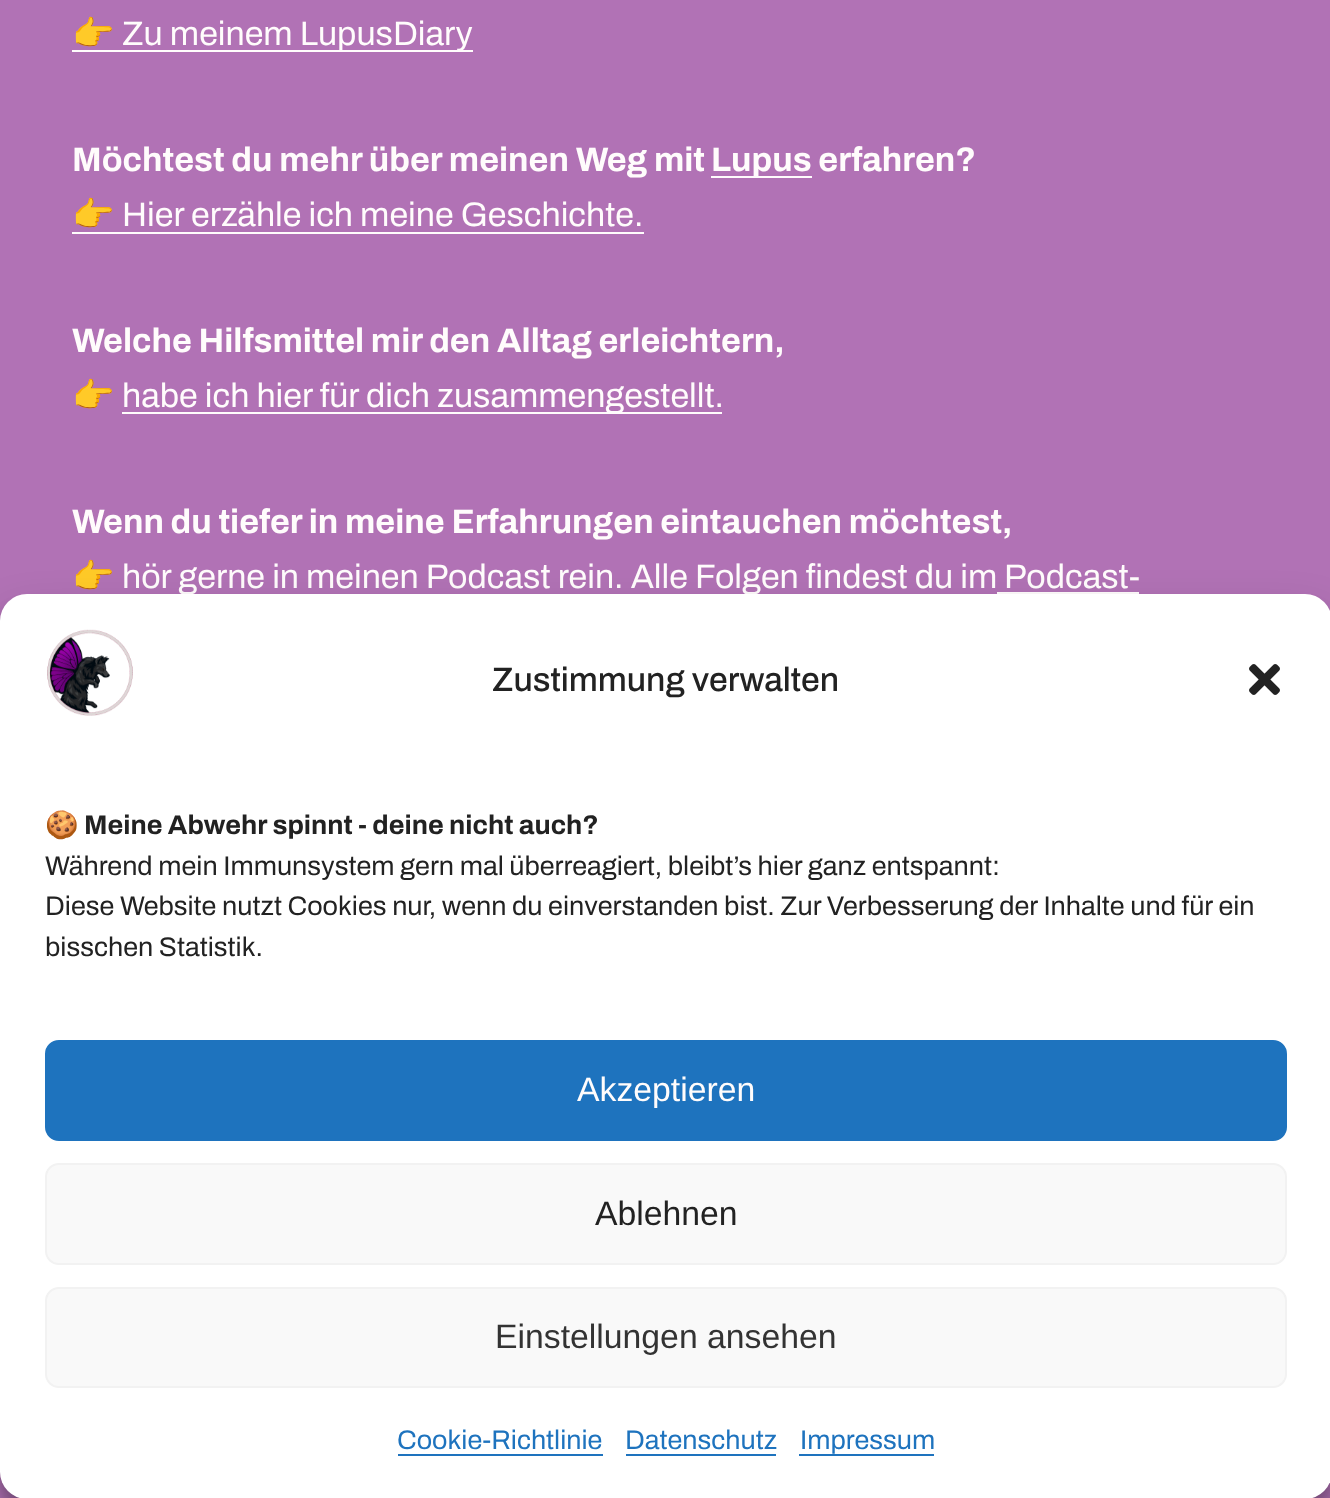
async function draw(canvas) {
  canvas.width = 1330
  canvas.height = 1498
  const ctx = canvas.getContext('2d')
  ctx.miterLimit = 4
  ctx.fontKerning = 'normal'
  async function loadImage(src) {
    const img = new Image()
    img.src = src
    await img.decode()
    return img
  }

  ctx.fillStyle = '#b172b5'
  ctx.fillRect(0, 0, 1330, 1498)
  ctx.fillStyle = '#fffcfc'
  ctx.fillRect(72, 50, 401, 2)
  ctx.font = '34.05px Noto Color Emoji'
  ctx.fillText('👉', 72, 45)
  ctx.font = '34.05px Archivo'
  ctx.fillText('Zu meinem LupusDiary', 122, 45)
  ctx.font = 'bold 34.05px Archivo'
  ctx.fillText('Möchtest du mehr über meinen Weg mit', 72, 171)
  ctx.fillRect(711, 176, 101, 2)
  ctx.fillText('Lupus erfahren?', 711, 171)
  ctx.fillRect(72, 232, 572, 2)
  ctx.font = '34.05px Noto Color Emoji'
  ctx.fillText('👉', 72, 226)
  ctx.font = '34.05px Archivo'
  ctx.fillText('Hier erzähle ich meine Geschichte.', 122, 226)
  ctx.font = 'bold 34.05px Archivo'
  ctx.fillText('Welche Hilfsmittel mir den Alltag erleichtern,', 72, 352)
  ctx.font = '34.05px Noto Color Emoji'
  ctx.fillText('👉', 72, 407)
  ctx.fillRect(122, 412, 600, 2)
  ctx.font = '34.05px Archivo'
  ctx.fillText('habe ich hier für dich zusammengestellt.', 122, 407)
  ctx.font = 'bold 34.05px Archivo'
  ctx.fillText('Wenn du tiefer in meine Erfahrungen eintauchen möchtest,', 72, 533)
  ctx.font = '34.05px Noto Color Emoji'
  ctx.fillText('👉', 72, 588)
  ctx.font = '34.05px Archivo'
  ctx.fillText('hör gerne in meinen Podcast rein. Alle Folgen findest du im', 122, 588)
  ctx.fillText('Podcast-', 1004, 588)
  ctx.fillRect(997, 592, 142, 2)
  ctx.fillStyle = '#0000003b'
  ctx.filter = 'blur(7px)'
  ctx.beginPath()
  ctx.roundRect(0, 608, 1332, 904, 27)
  ctx.fill()
  ctx.filter = 'none'
  ctx.fillStyle = '#00000030'
  ctx.filter = 'blur(22.5px)'
  ctx.beginPath()
  ctx.roundRect(0, 617, 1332, 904, 27)
  ctx.fill()
  ctx.filter = 'none'
  ctx.fillStyle = '#fff'
  ctx.beginPath()
  ctx.roundRect(0, 594, 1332, 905, 27)
  ctx.fill()
  ctx.drawImage(await loadImage('image0.png'), 47, 629, 86, 87)
  ctx.font = '500 33.75px Archivo'
  ctx.fillStyle = '#222'
  ctx.fillText('Zustimmung verwalten', 492, 691)
  ctx.drawImage(await loadImage('image1.png'), 1249, 664, 31, 31)
  ctx.font = '27px Noto Color Emoji'
  ctx.fillText('🍪', 45, 834)
  ctx.font = 'bold 27px Archivo'
  ctx.fillText('Meine Abwehr spinnt - deine nicht auch?', 84, 834)
  ctx.font = '27px Archivo'
  ctx.fillText('Während mein Immunsystem gern mal überreagiert, bleibt’s hier ganz entspannt:', 45, 875)
  ctx.fillText('Diese Website nutzt Cookies nur, wenn du einverstanden bist. Zur Verbesserung der Inhalte und für ein', 45, 915)
  ctx.fillText('bisschen Statistik.', 45, 956)
  ctx.fillStyle = '#1e73be'
  ctx.beginPath()
  ctx.roundRect(46, 1041, 1240, 99, 13)
  ctx.fill()
  ctx.strokeStyle = '#1e73be'
  ctx.lineWidth = 2
  ctx.stroke()
  ctx.font = '33.75px Liberation Sans'
  ctx.fillStyle = '#fffcfc'
  ctx.fillText('Akzeptieren', 577, 1101)
  ctx.fillStyle = '#f9f9f9'
  ctx.beginPath()
  ctx.roundRect(46, 1164, 1240, 100, 13)
  ctx.fill()
  ctx.strokeStyle = '#f2f2f2'
  ctx.stroke()
  ctx.fillStyle = '#222'
  ctx.fillText('Ablehnen', 595, 1225)
  ctx.fillStyle = '#f9f9f9'
  ctx.beginPath()
  ctx.roundRect(46, 1288, 1240, 99, 13)
  ctx.fill()
  ctx.stroke()
  ctx.fillStyle = '#333'
  ctx.fillText('Einstellungen ansehen', 495, 1348)
  ctx.font = '27px Archivo'
  ctx.fillStyle = '#1e73be'
  ctx.fillText('Cookie-Richtlinie', 397, 1449)
  ctx.fillRect(398, 1454, 205, 2)
  ctx.fillText('Datenschutz', 625, 1449)
  ctx.fillRect(626, 1454, 150, 2)
  ctx.fillText('Impressum', 800, 1449)
  ctx.fillRect(799, 1454, 135, 2)
}

draw(document.querySelector('canvas'))
